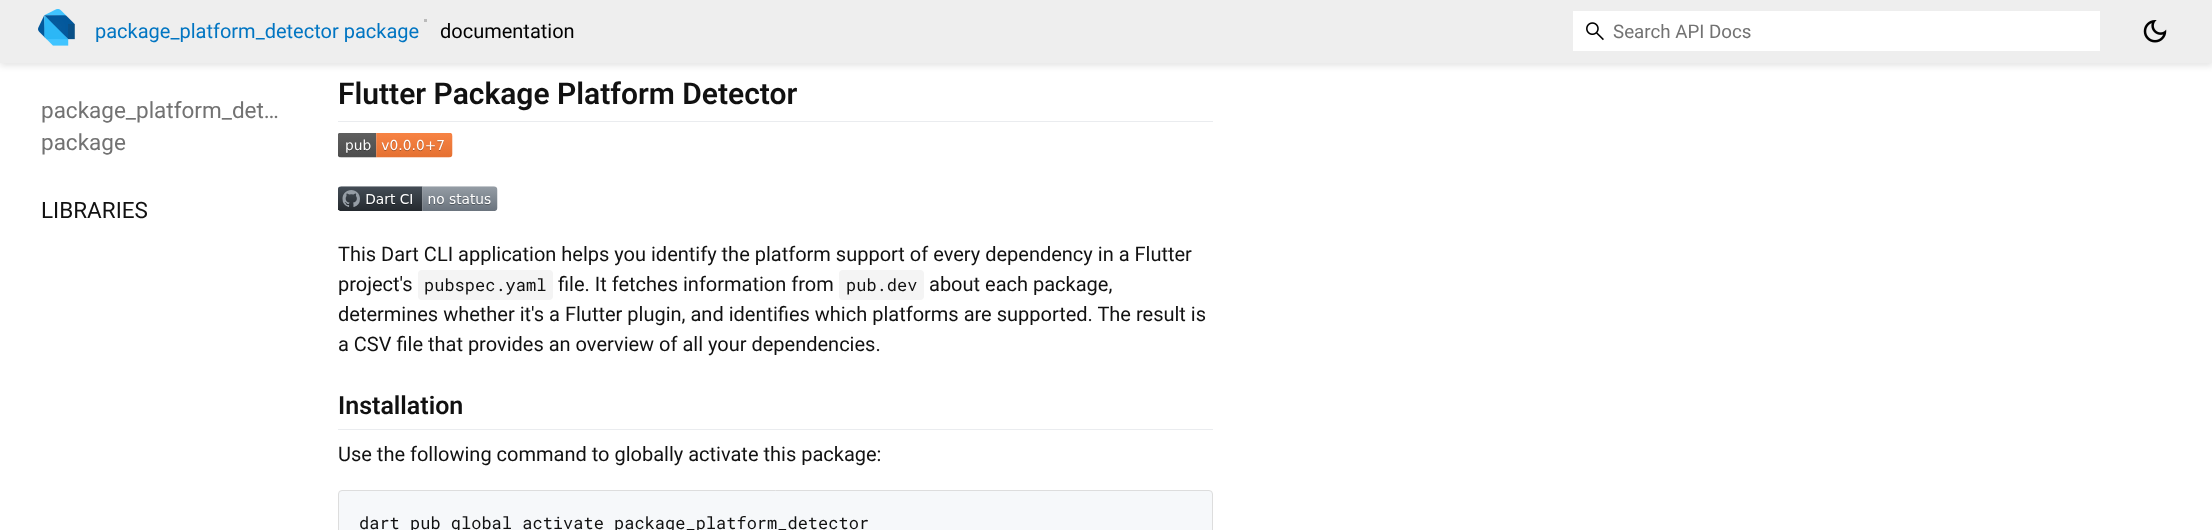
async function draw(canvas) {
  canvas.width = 2212
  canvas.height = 530
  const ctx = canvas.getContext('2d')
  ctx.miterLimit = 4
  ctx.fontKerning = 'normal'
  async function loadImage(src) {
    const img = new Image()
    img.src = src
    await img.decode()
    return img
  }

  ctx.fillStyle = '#fff'
  ctx.fillRect(0, 0, 2212, 530)
  ctx.fillStyle = '#0000001a'
  ctx.filter = 'blur(3px)'
  ctx.beginPath()
  ctx.rect(0, 4, 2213, 62)
  ctx.fill()
  ctx.filter = 'none'
  ctx.fillStyle = '#eee'
  ctx.fillRect(0, 0, 2212, 63)
  ctx.drawImage(await loadImage('image0.png'), 38, 9, 37, 37)
  ctx.font = '20px Roboto'
  ctx.fillStyle = '#0175c2'
  ctx.fillText('package_platform_detector package', 95, 38)
  ctx.fillStyle = '#bbb'
  ctx.fillRect(424, 19, 3, 3)
  ctx.fillStyle = '#000'
  ctx.fillText('documentation', 440, 38)
  ctx.fillStyle = '#fff'
  ctx.fillRect(1573, 11, 527, 40)
  ctx.drawImage(await loadImage('image1.png'), 1586, 22, 18, 19)
  ctx.font = '18.75px Roboto'
  ctx.fillStyle = '#727272'
  ctx.fillText('Search API Docs', 1613, 38)
  ctx.drawImage(await loadImage('image2.png'), 2143, 20, 24, 23)
  ctx.font = '22.5px Roboto'
  ctx.fillText('package_platform_det…', 41, 118)
  ctx.fillText('package', 41, 150)
  ctx.fillStyle = '#111'
  ctx.fillText('LIBRARIES', 41, 218)
  ctx.fillStyle = '#eaecef'
  ctx.fillRect(338, 121, 875, 1)
  ctx.font = '600 30px Roboto'
  ctx.fillStyle = '#111'
  ctx.fillText('Flutter Package Platform Detector', 338, 104)
  ctx.drawImage(await loadImage('image3.png'), 338, 133, 115, 25)
  ctx.drawImage(await loadImage('image4.png'), 338, 186, 160, 25)
  ctx.font = '20px Roboto'
  ctx.fillText('This Dart CLI application helps you identify the platform support of every dependency in a Flutter', 338, 261)
  ctx.fillText('project\'s', 338, 291)
  ctx.fillStyle = '#f4f4f4'
  ctx.beginPath()
  ctx.roundRect(418, 270, 135, 30, 4)
  ctx.fill()
  ctx.font = '17px Roboto Mono'
  ctx.fillStyle = '#111'
  ctx.fillText('pubspec.yaml', 424, 291)
  ctx.font = '20px Roboto'
  ctx.fillText('file. It fetches information from', 558, 291)
  ctx.fillStyle = '#f4f4f4'
  ctx.beginPath()
  ctx.roundRect(839, 270, 85, 30, 4)
  ctx.fill()
  ctx.font = '17px Roboto Mono'
  ctx.fillStyle = '#111'
  ctx.fillText('pub.dev', 846, 291)
  ctx.font = '20px Roboto'
  ctx.fillText('about each package,', 929, 291)
  ctx.fillText('determines whether it\'s a Flutter plugin, and identifies which platforms are supported. The result is', 338, 321)
  ctx.fillText('a CSV file that provides an overview of all your dependencies.', 338, 351)
  ctx.fillStyle = '#eaecef'
  ctx.fillRect(338, 429, 875, 1)
  ctx.font = '600 25px Roboto'
  ctx.fillStyle = '#111'
  ctx.fillText('Installation', 338, 414)
  ctx.font = '20px Roboto'
  ctx.fillText('Use the following command to globally activate this package:', 338, 461)
  ctx.fillStyle = '#f6f8fa'
  ctx.beginPath()
  ctx.roundRect(338.5, 490.5, 874, 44, 3.5)
  ctx.fill()
  ctx.strokeStyle = '#ddd'
  ctx.stroke()
  ctx.font = '17px Roboto Mono'
  ctx.fillStyle = '#111'
  ctx.fillText('dart pub global activate package_platform_detector', 359, 529)
}

draw(document.querySelector('canvas'))
